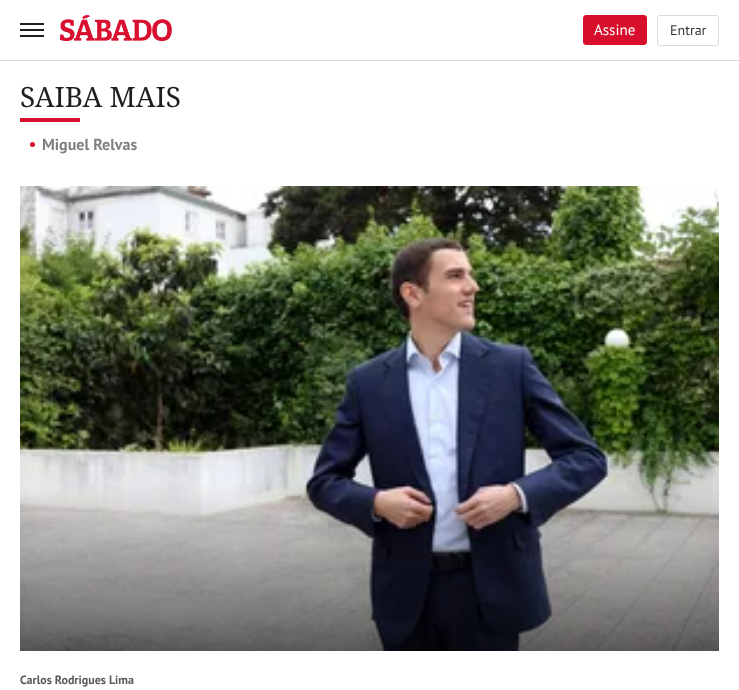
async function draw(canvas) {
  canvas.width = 739
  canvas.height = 690
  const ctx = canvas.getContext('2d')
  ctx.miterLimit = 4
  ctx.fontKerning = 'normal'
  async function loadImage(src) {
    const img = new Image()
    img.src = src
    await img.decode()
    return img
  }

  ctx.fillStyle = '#fff'
  ctx.fillRect(0, 0, 739, 690)
  ctx.fillStyle = '#dbdbdb'
  ctx.fillRect(0, 60, 739, 1)
  ctx.fillStyle = '#1f1f1f'
  ctx.fillRect(20, 29, 24, 2)
  ctx.fillRect(20, 23, 24, 2)
  ctx.fillRect(20, 35, 24, 2)
  ctx.drawImage(await loadImage('image0.png'), 60, 15, 112, 26)
  ctx.fillStyle = '#d80e2d'
  ctx.beginPath()
  ctx.roundRect(583.5, 15.5, 63, 29, 2.5)
  ctx.fill()
  ctx.strokeStyle = '#d80e2d'
  ctx.stroke()
  ctx.font = '15px PT Sans'
  ctx.fillStyle = '#fff'
  ctx.fillText('Assine', 594, 35)
  ctx.beginPath()
  ctx.roundRect(657.5, 15.5, 61, 30, 2.5)
  ctx.strokeStyle = '#dbdbdb'
  ctx.stroke()
  ctx.font = '14px PT Sans'
  ctx.fillStyle = '#333'
  ctx.fillText('Entrar', 670, 35)
  ctx.fillStyle = '#d80e2d'
  ctx.fillRect(20, 118, 60, 4)
  ctx.font = '28px Noto Serif'
  ctx.fillStyle = '#1f1f1f'
  ctx.fillText('SAIBA MAIS', 20, 107)
  ctx.fillStyle = '#d80e2d'
  ctx.beginPath()
  ctx.arc(32.5, 144.5, 2.5, 0, 2 * Math.PI)
  ctx.fill()
  ctx.font = 'bold 16px PT Sans'
  ctx.fillStyle = '#808080'
  ctx.fillText('Miguel Relvas', 42, 150)
  ctx.drawImage(await loadImage('image1.png'), 20, 186, 699, 465)
  ctx.font = 'bold 12px PT Sans'
  ctx.fillStyle = '#595959'
  ctx.fillText('Carlos Rodrigues Lima', 20, 684)
}

draw(document.querySelector('canvas'))
